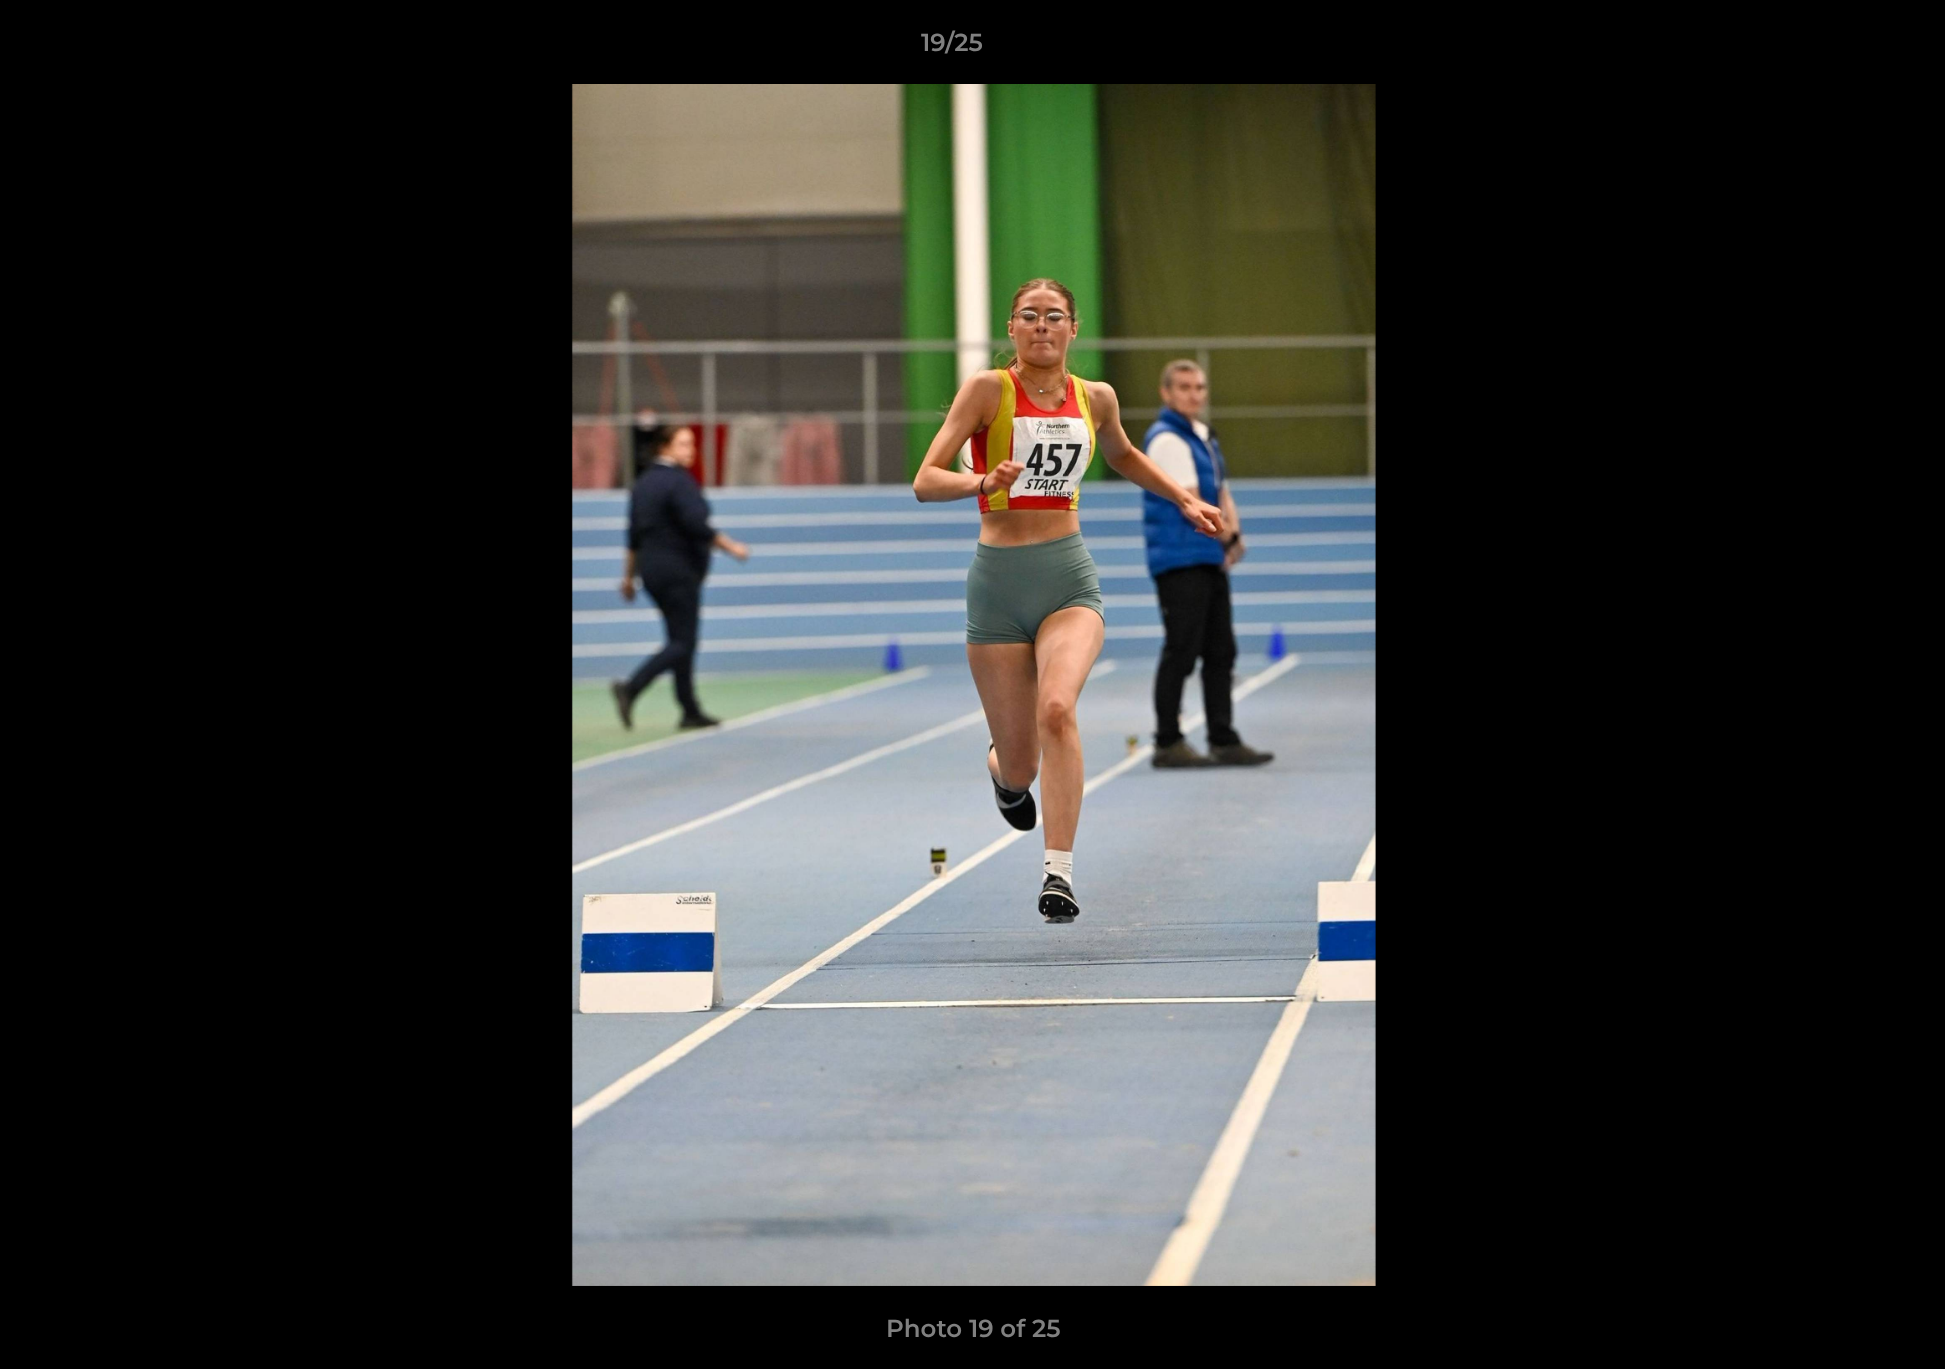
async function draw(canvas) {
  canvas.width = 1945
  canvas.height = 1369
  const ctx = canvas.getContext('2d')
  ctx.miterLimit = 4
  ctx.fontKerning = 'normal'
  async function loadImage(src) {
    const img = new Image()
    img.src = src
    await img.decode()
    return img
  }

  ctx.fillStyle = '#000'
  ctx.fillRect(0, 0, 1945, 1369)
  ctx.font = '600 24.5px Montserrat'
  ctx.fillStyle = '#808080'
  ctx.fillText('19/25', 921, 51)
  ctx.drawImage(await loadImage('image0.png'), 571, 84, 805, 1202)
  ctx.fillText('Photo 19 of 25', 886, 1337)
}

draw(document.querySelector('canvas'))
